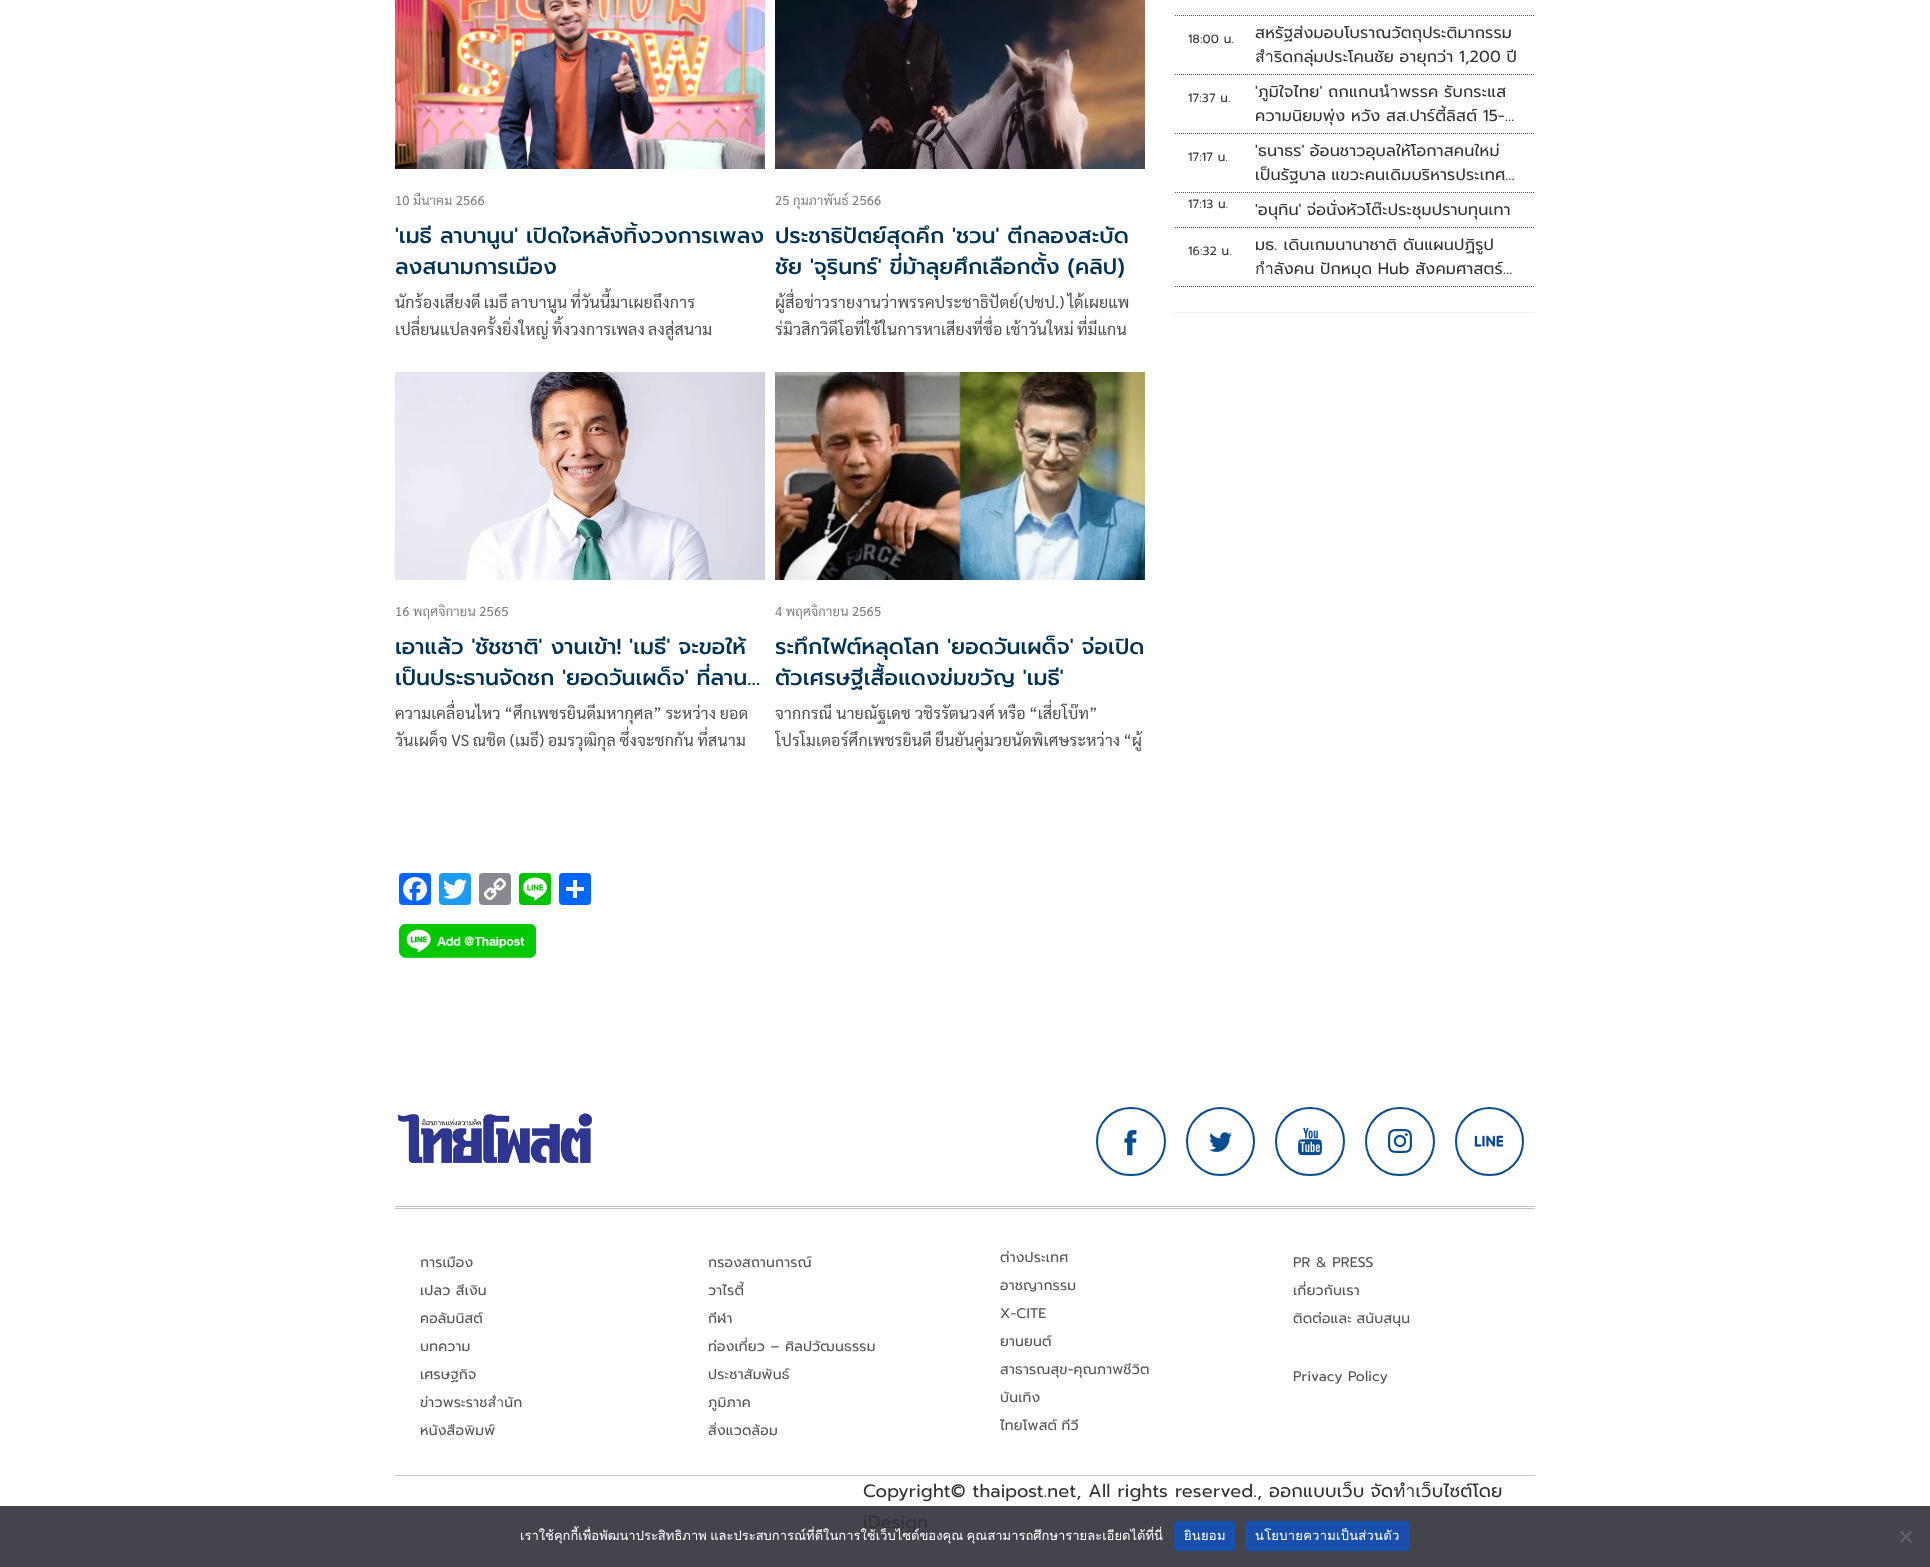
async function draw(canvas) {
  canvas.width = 1930
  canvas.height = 1567
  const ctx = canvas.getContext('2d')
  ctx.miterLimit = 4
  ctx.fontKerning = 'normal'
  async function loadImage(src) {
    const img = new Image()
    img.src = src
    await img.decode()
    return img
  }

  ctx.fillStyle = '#fff'
  ctx.fillRect(0, 0, 1930, 1567)
  ctx.fillStyle = '#44444c'
  ctx.fillRect(0, 1506, 1930, 61)
  ctx.beginPath()
  ctx.moveTo(1175, 15.5)
  ctx.lineTo(1535, 15.5)
  ctx.strokeStyle = '#555'
  ctx.setLineDash([1, 1])
  ctx.stroke()
  ctx.beginPath()
  ctx.moveTo(1175, 74.5)
  ctx.lineTo(1535, 74.5)
  ctx.stroke()
  ctx.letterSpacing = '0.18px'
  ctx.font = '12px Prompt'
  ctx.fillStyle = '#333'
  ctx.fillText('18:00 น.', 1188, 43)
  ctx.font = '16px Prompt'
  ctx.fillText('สหรัฐส่งมอบโบราณวัตถุประติมากรรม', 1255, 38)
  ctx.save()
  ctx.beginPath()
  ctx.rect(1255, 21, 268, 48)
  ctx.clip()
  ctx.wordSpacing = '-0.5px'
  ctx.fillText('สำริดกลุ่มประโคนชัย อายุกว่า 1,200 ปี', 1255, 62)
  ctx.restore()
  ctx.beginPath()
  ctx.moveTo(1175, 133.5)
  ctx.lineTo(1535, 133.5)
  ctx.stroke()
  ctx.font = '12px Prompt'
  ctx.fillText('17:37 น.', 1188, 102)
  ctx.save()
  ctx.beginPath()
  ctx.rect(1255, 80, 268, 48)
  ctx.clip()
  ctx.wordSpacing = '-0.5px'
  ctx.font = '16px Prompt'
  ctx.fillText('\'ภูมิใจไทย\' ถกแกนนำพรรค รับกระแส', 1255, 97)
  ctx.restore()
  ctx.wordSpacing = '-0.5px'
  ctx.font = '16px Prompt'
  ctx.fillText('ความนิยมพุ่ง หวัง สส.ปาร์ตี้ลิสต์ 15-…', 1255, 121)
  ctx.beginPath()
  ctx.moveTo(1175, 192.5)
  ctx.lineTo(1535, 192.5)
  ctx.stroke()
  ctx.wordSpacing = '0px'
  ctx.font = '12px Prompt'
  ctx.fillText('17:17 น.', 1188, 161)
  ctx.wordSpacing = '-1px'
  ctx.font = '16px Prompt'
  ctx.fillText('\'ธนาธร\' อ้อนชาวอุบลให้โอกาสคนใหม่', 1255, 156)
  ctx.save()
  ctx.beginPath()
  ctx.rect(1255, 139, 268, 48)
  ctx.clip()
  ctx.fillText('เป็นรัฐบาล แขวะคนเดิมบริหารประเทศ…', 1255, 180)
  ctx.restore()
  ctx.beginPath()
  ctx.moveTo(1175, 227.5)
  ctx.lineTo(1535, 227.5)
  ctx.stroke()
  ctx.wordSpacing = '0px'
  ctx.font = '12px Prompt'
  ctx.fillText('17:13 น.', 1188, 208)
  ctx.wordSpacing = '-1px'
  ctx.font = '16px Prompt'
  ctx.fillText('\'อนุทิน\' จ่อนั่งหัวโต๊ะประชุมปราบทุนเทา', 1255, 215)
  ctx.beginPath()
  ctx.moveTo(1175, 286.5)
  ctx.lineTo(1535, 286.5)
  ctx.stroke()
  ctx.wordSpacing = '0px'
  ctx.font = '12px Prompt'
  ctx.fillText('16:32 น.', 1188, 255)
  ctx.font = '16px Prompt'
  ctx.fillText('มธ. เดินเกมนานาชาติ ดันแผนปฏิรูป', 1255, 250)
  ctx.save()
  ctx.beginPath()
  ctx.rect(1255, 233, 268, 48)
  ctx.clip()
  ctx.wordSpacing = '-0.5px'
  ctx.fillText('กำลังคน ปักหมุด Hub สังคมศาสตร์…', 1255, 274)
  ctx.restore()
  ctx.fillStyle = '#eee'
  ctx.fillRect(1175, 312, 360, 1)
  ctx.drawImage(await loadImage('image0.png'), 395, 0, 370, 169)
  ctx.font = '13px Sarabun'
  ctx.fillStyle = '#7e7e7e'
  ctx.fillText('10 มีนาคม 2566', 395, 205)
  ctx.letterSpacing = '0px'
  ctx.font = '500 22px Prompt'
  ctx.fillStyle = '#003254'
  ctx.fillText('\'เมธี ลาบานูน\' เปิดใจหลังทิ้งวงการเพลง', 395, 243)
  ctx.fillText('ลงสนามการเมือง', 395, 274)
  ctx.save()
  ctx.beginPath()
  ctx.rect(395, 288, 370, 54)
  ctx.clip()
  ctx.letterSpacing = '0.18px'
  ctx.wordSpacing = '-1px'
  ctx.font = '16px Sarabun'
  ctx.fillStyle = '#4e4e4e'
  ctx.fillText('นักร้องเสียงดี เมธี ลาบานูน ที่วันนี้มาเผยถึงการ', 395, 308)
  ctx.restore()
  ctx.letterSpacing = '0.18px'
  ctx.wordSpacing = '-1px'
  ctx.font = '16px Sarabun'
  ctx.fillStyle = '#4e4e4e'
  ctx.fillText('เปลี่ยนแปลงครั้งยิ่งใหญ่ ทิ้งวงการเพลง ลงสู่สนาม', 395, 335)
  ctx.drawImage(await loadImage('image1.png'), 775, 0, 370, 169)
  ctx.wordSpacing = '0px'
  ctx.font = '13px Sarabun'
  ctx.fillStyle = '#7e7e7e'
  ctx.fillText('25 กุมภาพันธ์ 2566', 775, 205)
  ctx.letterSpacing = '0px'
  ctx.font = '500 22px Prompt'
  ctx.fillStyle = '#003254'
  ctx.fillText('ประชาธิปัตย์สุดคึก \'ชวน\' ตีกลองสะบัด', 775, 243)
  ctx.save()
  ctx.beginPath()
  ctx.rect(775, 221, 370, 62)
  ctx.clip()
  ctx.fillText('ชัย', 775, 274)
  ctx.restore()
  ctx.fillText('\'จุรินทร์\' ขี่ม้าลุยศึกเลือกตั้ง (คลิป)', 810, 274)
  ctx.save()
  ctx.beginPath()
  ctx.rect(775, 288, 370, 54)
  ctx.clip()
  ctx.letterSpacing = '0.18px'
  ctx.wordSpacing = '-1px'
  ctx.font = '16px Sarabun'
  ctx.fillStyle = '#4e4e4e'
  ctx.fillText('ผู้สื่อข่าวรายงานว่าพรรคประชาธิปัตย์(ปชป.) ได้เผยแพ', 775, 308)
  ctx.fillText('ร่มิวสิกวิดีโอที่ใช้ในการหาเสียงที่ชื่อ เช้าวันใหม่ ที่มีแกน', 775, 335)
  ctx.restore()
  ctx.drawImage(await loadImage('image2.png'), 395, 372, 370, 208)
  ctx.letterSpacing = '0.18px'
  ctx.font = '13px Sarabun'
  ctx.fillStyle = '#7e7e7e'
  ctx.fillText('16 พฤศจิกายน 2565', 395, 616)
  ctx.letterSpacing = '0px'
  ctx.font = '500 22px Prompt'
  ctx.fillStyle = '#003254'
  ctx.fillText('เอาแล้ว \'ชัชชาติ\' งานเข้า! \'เมธี\' จะขอให้', 395, 654)
  ctx.save()
  ctx.beginPath()
  ctx.rect(395, 632, 370, 62)
  ctx.clip()
  ctx.fillText('เป็นประธานจัดชก \'ยอดวันเผด็จ\' ที่ลาน…', 395, 685)
  ctx.restore()
  ctx.letterSpacing = '0.18px'
  ctx.wordSpacing = '-0.5px'
  ctx.font = '16px Sarabun'
  ctx.fillStyle = '#4e4e4e'
  ctx.fillText('ความเคลื่อนไหว “ศึกเพชรยินดีมหากุศล” ระหว่าง ยอด', 395, 719)
  ctx.save()
  ctx.beginPath()
  ctx.rect(395, 699, 370, 54)
  ctx.clip()
  ctx.fillText('วันเผด็จ VS ณชิต (เมธี) อมรวุฒิกุล ซึ่งจะชกกัน ที่สนาม', 395, 746)
  ctx.restore()
  ctx.drawImage(await loadImage('image3.png'), 775, 372, 370, 208)
  ctx.wordSpacing = '0px'
  ctx.font = '13px Sarabun'
  ctx.fillStyle = '#7e7e7e'
  ctx.fillText('4 พฤศจิกายน 2565', 775, 616)
  ctx.letterSpacing = '0px'
  ctx.font = '500 22px Prompt'
  ctx.fillStyle = '#003254'
  ctx.fillText('ระทึกไฟต์หลุดโลก \'ยอดวันเผด็จ\' จ่อเปิด', 775, 654)
  ctx.save()
  ctx.beginPath()
  ctx.rect(775, 632, 370, 62)
  ctx.clip()
  ctx.fillText('ตัวเศรษฐีเสื้อแดงข่มขวัญ \'เมธี\'', 775, 685)
  ctx.restore()
  ctx.letterSpacing = '0.18px'
  ctx.font = '16px Sarabun'
  ctx.fillStyle = '#4e4e4e'
  ctx.fillText('จากกรณี นายณัฐเดช', 775, 719)
  ctx.wordSpacing = '-1px'
  ctx.fillText('วชิรรัตนวงศ์ หรือ “เสี่ยโบ๊ท”', 915, 719)
  ctx.save()
  ctx.beginPath()
  ctx.rect(775, 699, 370, 54)
  ctx.clip()
  ctx.fillText('โปรโมเตอร์ศึกเพชรยินดี ยืนยันคู่มวยนัดพิเศษระหว่าง “ผู้', 775, 746)
  ctx.restore()
  ctx.fillStyle = '#0866ff'
  ctx.beginPath()
  ctx.roundRect(399, 873, 32, 32, 4)
  ctx.fill()
  ctx.drawImage(await loadImage('image4.png'), 403, 877, 24, 24)
  ctx.fillStyle = '#1d9bf0'
  ctx.beginPath()
  ctx.roundRect(439, 873, 32, 32, 4)
  ctx.fill()
  ctx.drawImage(await loadImage('image5.png'), 443, 879, 24, 20)
  ctx.fillStyle = '#888990'
  ctx.beginPath()
  ctx.roundRect(479, 873, 32, 32, 4)
  ctx.fill()
  ctx.drawImage(await loadImage('image6.png'), 484, 878, 22, 22)
  ctx.fillStyle = '#00c300'
  ctx.beginPath()
  ctx.roundRect(519, 873, 32, 32, 4)
  ctx.fill()
  ctx.drawImage(await loadImage('image7.png'), 523, 877, 24, 24)
  ctx.fillStyle = '#0166ff'
  ctx.beginPath()
  ctx.roundRect(559, 873, 32, 32, 4)
  ctx.fill()
  ctx.fillStyle = '#fff'
  ctx.fillRect(573, 880, 4, 18)
  ctx.fillRect(566, 887, 18, 4)
  ctx.drawImage(await loadImage('image8.png'), 399, 924, 137, 34)
  ctx.drawImage(await loadImage('image9.png'), 398, 1113, 194, 50)
  ctx.beginPath()
  ctx.roundRect(1097, 1108, 68, 67, 33.5)
  ctx.strokeStyle = '#0b4c8f'
  ctx.lineWidth = 2
  ctx.setLineDash([])
  ctx.stroke()
  ctx.drawImage(await loadImage('image10.png'), 1124, 1130, 13, 26)
  ctx.beginPath()
  ctx.arc(1220.5, 1141.5, 33.5, 0, 2 * Math.PI)
  ctx.stroke()
  ctx.drawImage(await loadImage('image11.png'), 1209, 1132, 23, 20)
  ctx.beginPath()
  ctx.roundRect(1276, 1108, 68, 67, 33.5)
  ctx.stroke()
  ctx.drawImage(await loadImage('image12.png'), 1298, 1127, 24, 29)
  ctx.beginPath()
  ctx.roundRect(1366, 1108, 68, 67, 33.5)
  ctx.stroke()
  ctx.drawImage(await loadImage('image13.png'), 1388, 1129, 24, 24)
  ctx.beginPath()
  ctx.arc(1489.5, 1141.5, 33.5, 0, 2 * Math.PI)
  ctx.stroke()
  ctx.drawImage(await loadImage('image14.png'), 1474, 1135, 30, 12)
  ctx.fillStyle = '#bfc0c1'
  ctx.fillRect(395, 1206, 1140, 1)
  ctx.fillRect(395, 1208, 1140, 1)
  ctx.fillStyle = '#c6c6c6'
  ctx.fillRect(395, 1475, 1140, 1)
  ctx.wordSpacing = '0px'
  ctx.font = '14px Prompt'
  ctx.fillStyle = '#555'
  ctx.fillText('การเมือง', 420, 1267)
  ctx.fillText('เปลว สีเงิน', 420, 1295)
  ctx.fillText('คอลัมนิสต์', 420, 1323)
  ctx.fillText('บทความ', 420, 1351)
  ctx.fillText('เศรษฐกิจ', 420, 1379)
  ctx.fillText('ข่าวพระราชสำนัก', 420, 1407)
  ctx.fillText('หนังสือพิมพ์', 420, 1435)
  ctx.fillText('กรองสถานการณ์', 708, 1267)
  ctx.fillText('วาไรตี้', 708, 1295)
  ctx.fillText('กีฬา', 708, 1323)
  ctx.fillText('ท่องเที่ยว – ศิลปวัฒนธรรม', 708, 1351)
  ctx.fillText('ประชาสัมพันธ์', 708, 1379)
  ctx.fillText('ภูมิภาค', 708, 1407)
  ctx.fillText('สิ่งแวดล้อม', 708, 1435)
  ctx.fillText('ต่างประเทศ', 1000, 1262)
  ctx.fillText('อาชญากรรม', 1000, 1290)
  ctx.fillText('X-CITE', 1000, 1318)
  ctx.fillText('ยานยนต์', 1000, 1346)
  ctx.fillText('สาธารณสุข-คุณภาพชีวิต', 1000, 1374)
  ctx.fillText('บันเทิง', 1000, 1402)
  ctx.wordSpacing = '-1px'
  ctx.fillText('ไทยโพสต์ ทีวี', 1000, 1430)
  ctx.wordSpacing = '0px'
  ctx.fillText('PR & PRESS', 1293, 1267)
  ctx.fillText('เกี่ยวกับเรา', 1293, 1295)
  ctx.wordSpacing = '-1px'
  ctx.fillText('ติดต่อและ สนับสนุน', 1293, 1323)
  ctx.wordSpacing = '0px'
  ctx.fillText('Privacy Policy', 1293, 1381)
  ctx.font = '18px Prompt'
  ctx.fillStyle = '#333'
  ctx.fillText('Copyright© thaipost.net, All rights reserved.,', 863, 1497)
  ctx.wordSpacing = '-1px'
  ctx.fillText('ออกแบบเว็บ จัดทำเว็บไซต์โดย', 1269, 1497)
  ctx.wordSpacing = '0px'
  ctx.fillStyle = '#323239'
  ctx.fillText('iDesign', 863, 1528)
  ctx.letterSpacing = '0px'
  ctx.wordSpacing = '-1px'
  ctx.font = '13px Loma'
  ctx.fillStyle = '#fff'
  ctx.fillText('เราใช้คุกกี้เพื่อพัฒนาประสิทธิภาพ และประสบการณ์ที่ดีในการใช้เว็บไซต์ของคุณ คุณสามารถศึกษารายละเอียดได้ที่นี่', 520, 1540)
  ctx.fillStyle = '#194eaa'
  ctx.beginPath()
  ctx.roundRect(1174, 1521, 61, 30, 3)
  ctx.fill()
  ctx.letterSpacing = '0.25px'
  ctx.wordSpacing = '0px'
  ctx.fillStyle = '#fff'
  ctx.fillText('ยินยอม', 1184, 1540)
  ctx.fillStyle = '#194eaa'
  ctx.beginPath()
  ctx.roundRect(1245, 1521, 165, 30, 3)
  ctx.fill()
  ctx.fillStyle = '#fff'
  ctx.fillText('นโยบายความเป็นส่วนตัว', 1255, 1540)
  ctx.fillStyle = '#626266'
  ctx.beginPath()
  ctx.moveTo(1910.5, 1530.5)
  ctx.lineTo(1912, 1532)
  ctx.lineTo(1901.5, 1543)
  ctx.lineTo(1900, 1541.5)
  ctx.closePath()
  ctx.fill()
  ctx.beginPath()
  ctx.moveTo(1900, 1532)
  ctx.lineTo(1901.5, 1530.5)
  ctx.lineTo(1912, 1541.5)
  ctx.lineTo(1910.5, 1543)
  ctx.closePath()
  ctx.fill()
}

draw(document.querySelector('canvas'))
